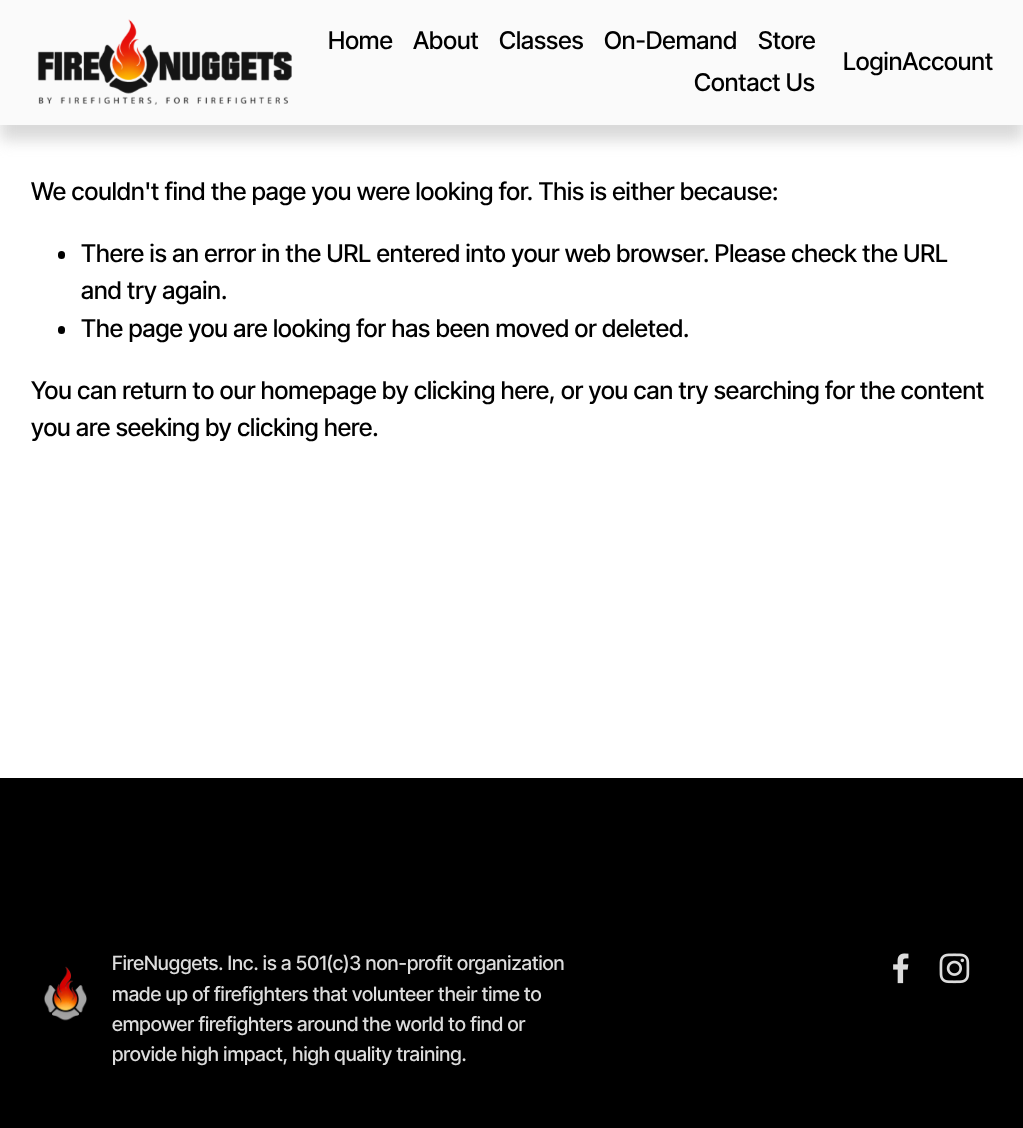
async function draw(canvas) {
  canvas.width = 1023
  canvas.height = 1128
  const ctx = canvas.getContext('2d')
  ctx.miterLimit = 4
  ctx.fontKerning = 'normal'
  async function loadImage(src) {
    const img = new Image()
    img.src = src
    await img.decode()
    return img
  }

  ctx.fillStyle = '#fff'
  ctx.fillRect(0, 0, 1023, 1128)
  ctx.fillStyle = '#d9d9d9'
  ctx.filter = 'blur(7.5px)'
  ctx.beginPath()
  ctx.rect(0, 15, 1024, 125)
  ctx.fill()
  ctx.filter = 'none'
  ctx.fillStyle = '#fafafa'
  ctx.fillRect(0, 0, 1023, 125)
  ctx.drawImage(await loadImage('image0.png'), 37, 19, 255, 86)
  ctx.font = '500 24.5px Inter Tight'
  ctx.fillStyle = '#000'
  ctx.fillText('Home', 328, 49)
  ctx.fillText('About', 413, 49)
  ctx.fillText('Classes', 499, 49)
  ctx.fillText('On-Demand', 604, 49)
  ctx.fillText('Store', 758, 49)
  ctx.fillText('Contact Us', 694, 91)
  ctx.fillText('LoginAccount', 843, 70)
  ctx.fillText('We couldn\'t find the page you were looking for. This is either because:', 31, 200)
  ctx.beginPath()
  ctx.roundRect(58, 251, 7, 8, 3.5)
  ctx.fill()
  ctx.fillText('There is an error in the URL entered into your web browser. Please check the URL', 81, 262)
  ctx.fillText('and try again.', 81, 299)
  ctx.beginPath()
  ctx.roundRect(58, 326, 7, 8, 3.5)
  ctx.fill()
  ctx.fillText('The page you are looking for has been moved or deleted.', 81, 337)
  ctx.fillText('You can return to our homepage by clicking here, or you can try searching for the content', 31, 399)
  ctx.fillText('you are seeking by clicking here.', 31, 436)
  ctx.fillRect(0, 778, 1023, 350)
  ctx.drawImage(await loadImage('image1.png'), 44, 966, 43, 55)
  ctx.font = '500 19.75px Inter Tight'
  ctx.fillStyle = '#dcdcdc'
  ctx.fillText('FireNuggets. Inc. is a 501(c)3 non-profit organization', 112, 970)
  ctx.fillText('made up of firefighters that volunteer their time to', 112, 1001)
  ctx.fillText('empower firefighters around the world to find or', 112, 1031)
  ctx.fillText('provide high impact, high quality training.', 112, 1061)
  ctx.drawImage(await loadImage('image2.png'), 893, 953, 16, 31)
  ctx.drawImage(await loadImage('image3.png'), 939, 953, 31, 31)
}

draw(document.querySelector('canvas'))
